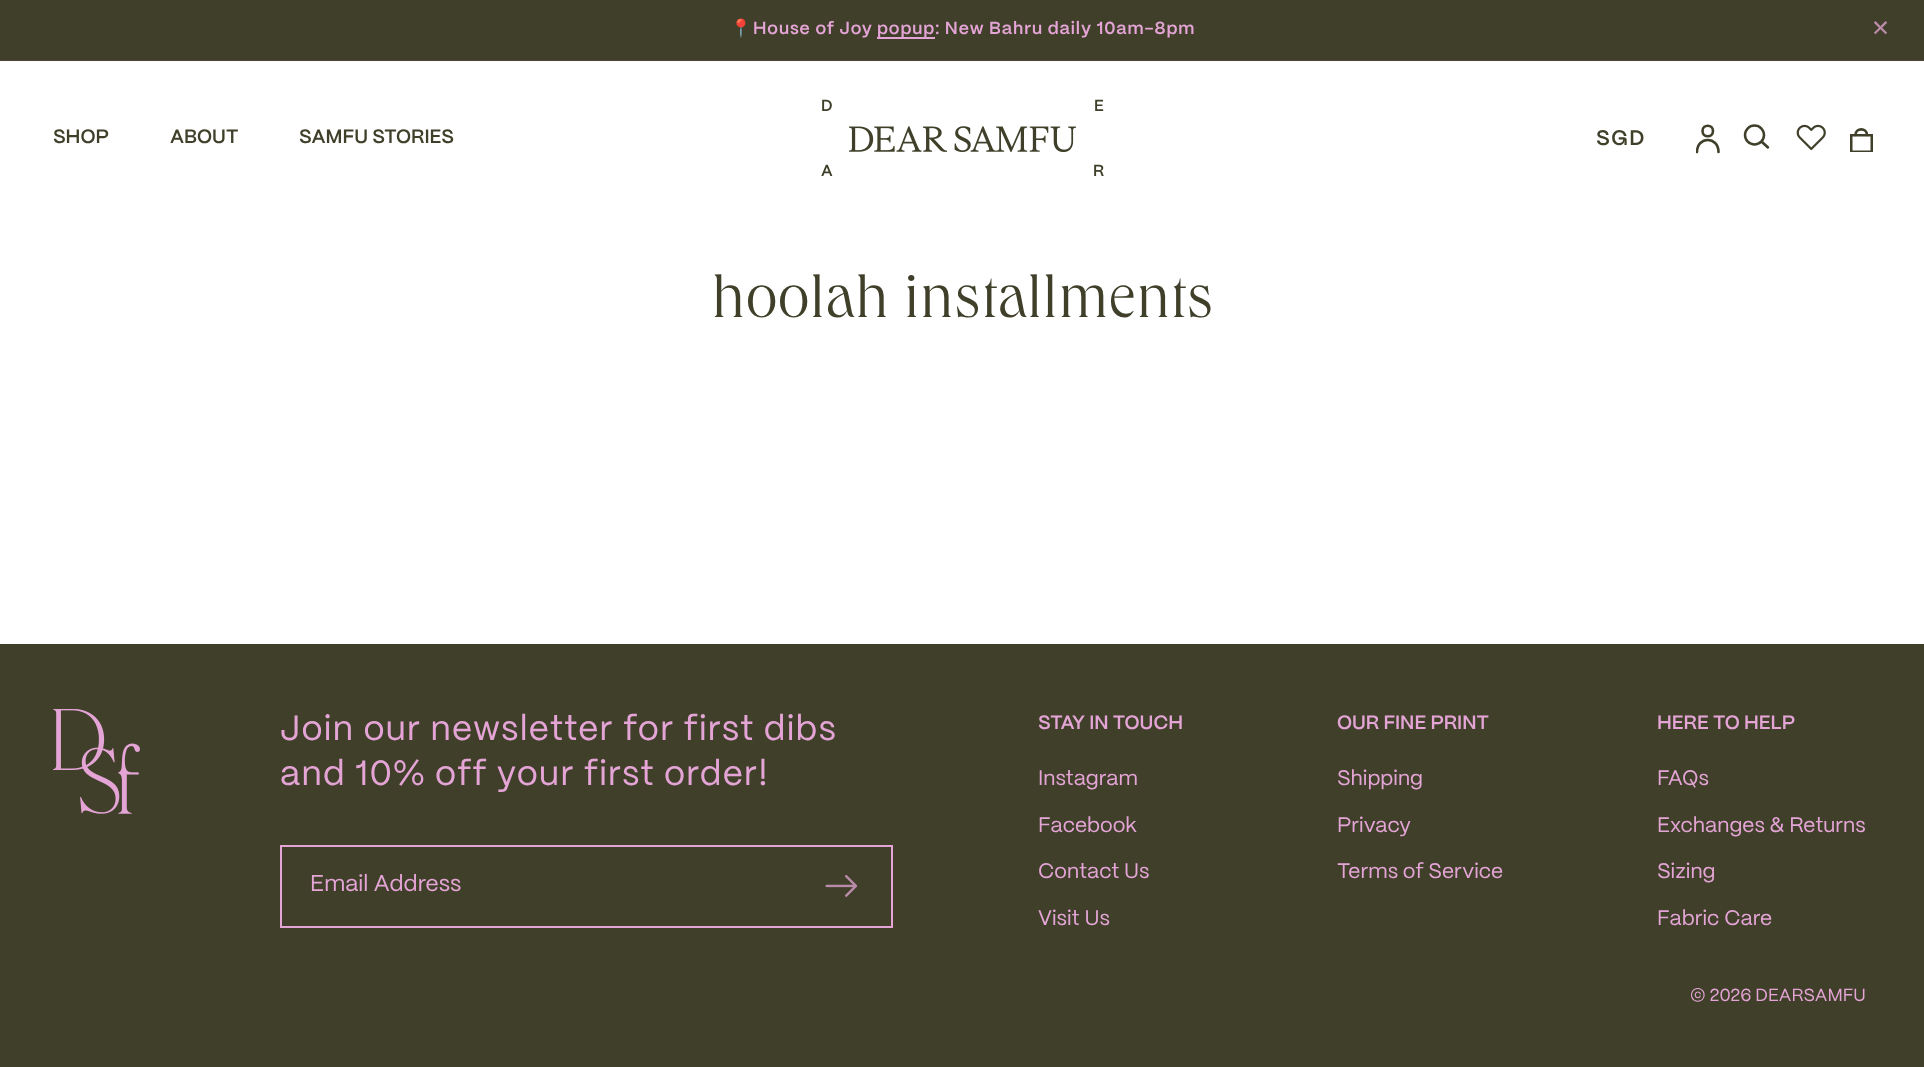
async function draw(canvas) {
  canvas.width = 1924
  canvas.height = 1067
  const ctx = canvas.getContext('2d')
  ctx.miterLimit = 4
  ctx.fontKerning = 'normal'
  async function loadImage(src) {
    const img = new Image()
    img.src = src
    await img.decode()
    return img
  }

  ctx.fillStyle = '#fff'
  ctx.fillRect(0, 0, 1924, 1067)
  ctx.fillStyle = '#fdf8fc'
  ctx.fillRect(0, 61, 1924, 1)
  ctx.fillStyle = '#3f3f2a'
  ctx.fillRect(0, 0, 1924, 60)
  ctx.fillStyle = '#4c4738'
  ctx.fillRect(0, 60, 1924, 1)
  ctx.letterSpacing = '0.9px'
  ctx.font = '17.5px Noto Color Emoji'
  ctx.fillStyle = '#e4a4d5'
  ctx.fillText('📍', 730, 34)
  ctx.font = '600 17.5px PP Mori'
  ctx.fillText('House of Joy', 753, 34)
  ctx.fillRect(877, 37, 58, 2)
  ctx.fillText('popup: New Bahru daily 10am-8pm', 877, 34)
  ctx.letterSpacing = '0px'
  ctx.font = '22.75px DejaVu Sans'
  ctx.fillStyle = '#bb8baa'
  ctx.fillText('✕', 1871, 36)
  ctx.font = '600 19.25px PP Mori'
  ctx.fillStyle = '#3f3f2a'
  ctx.fillText('SHOP', 53, 143)
  ctx.fillText('ABOUT', 170, 143)
  ctx.fillText('SAMFU STORIES', 299, 143)
  ctx.font = '600 16px PP Mori'
  ctx.fillText('D', 821, 111)
  ctx.fillText('E', 1094, 111)
  ctx.drawImage(await loadImage('image0.png'), 849, 126, 227, 26)
  ctx.fillText('A', 821, 176)
  ctx.fillText('R', 1093, 176)
  ctx.letterSpacing = '1.5px'
  ctx.font = '600 21px PP Mori'
  ctx.fillText('SGD', 1596, 145)
  ctx.beginPath()
  ctx.moveTo(1713, 131)
  ctx.bezierCurveTo(1713, 138, 1702.5, 138, 1702.5, 131)
  ctx.bezierCurveTo(1702.5, 124, 1713, 124, 1713, 131)
  ctx.closePath()
  ctx.strokeStyle = '#3f3f2a'
  ctx.lineWidth = 2.6
  ctx.lineCap = 'round'
  ctx.stroke()
  ctx.save()
  ctx.beginPath()
  ctx.rect(1696, 124, 24, 30)
  ctx.clip()
  ctx.beginPath()
  ctx.moveTo(1697, 152)
  ctx.bezierCurveTo(1697, 136, 1718.5, 136, 1718.5, 152)
  ctx.stroke()
  ctx.restore()
  ctx.beginPath()
  ctx.arc(1754.5, 135, 9.5, 0, 2 * Math.PI)
  ctx.lineWidth = 2.5
  ctx.stroke()
  ctx.beginPath()
  ctx.moveTo(1762, 142)
  ctx.lineTo(1768, 147.5)
  ctx.lineWidth = 1.7
  ctx.lineCap = 'butt'
  ctx.stroke()
  ctx.beginPath()
  ctx.moveTo(1762, 142)
  ctx.lineTo(1768, 147.5)
  ctx.lineWidth = 2.5
  ctx.lineCap = 'round'
  ctx.stroke()
  ctx.drawImage(await loadImage('image1.png'), 1796, 124, 30, 26)
  ctx.save()
  ctx.beginPath()
  ctx.rect(1850, 128, 23, 24)
  ctx.clip()
  ctx.strokeRect(1851.25, 135.25, 20.5, 16.5)
  ctx.restore()
  ctx.beginPath()
  ctx.moveTo(1855.5, 135)
  ctx.bezierCurveTo(1855.5, 127.5, 1867, 127.5, 1867, 135)
  ctx.lineWidth = 2.6
  ctx.stroke()
  ctx.letterSpacing = '1.25px'
  ctx.font = '300 61.5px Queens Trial'
  ctx.fillText('hoolah installments', 712, 317)
  ctx.fillRect(0, 644, 1924, 423)
  ctx.drawImage(await loadImage('image2.png'), 53, 709, 87, 105)
  ctx.font = '35px PP Mori'
  ctx.fillStyle = '#e4a4d5'
  ctx.fillText('Join our newsletter for first dibs', 280, 740)
  ctx.fillText('and 10% off your first order!', 280, 785)
  ctx.strokeStyle = '#e4a4d5'
  ctx.lineWidth = 2
  ctx.strokeRect(281, 846, 611, 81)
  ctx.letterSpacing = '0px'
  ctx.font = '22.75px PP Mori'
  ctx.fillText('Email Address', 310, 891)
  ctx.drawImage(await loadImage('image3.png'), 825, 875, 33, 22)
  ctx.font = '600 19.25px PP Mori'
  ctx.fillText('STAY IN TOUCH', 1038, 729)
  ctx.font = '21px PP Mori'
  ctx.fillText('Instagram', 1038, 785)
  ctx.fillText('Facebook', 1038, 832)
  ctx.fillText('Contact Us', 1038, 878)
  ctx.fillText('Visit Us', 1038, 925)
  ctx.font = '600 19.25px PP Mori'
  ctx.fillText('OUR FINE PRINT', 1337, 729)
  ctx.font = '21px PP Mori'
  ctx.fillText('Shipping', 1337, 785)
  ctx.fillText('Privacy', 1337, 832)
  ctx.fillText('Terms of Service', 1337, 878)
  ctx.font = '600 19.25px PP Mori'
  ctx.fillText('HERE TO HELP', 1657, 729)
  ctx.font = '21px PP Mori'
  ctx.fillText('FAQs', 1657, 785)
  ctx.fillText('Exchanges & Returns', 1657, 832)
  ctx.fillText('Sizing', 1657, 878)
  ctx.fillText('Fabric Care', 1657, 925)
  ctx.font = '17.5px PP Mori'
  ctx.fillText('© 2026 DEARSAMFU', 1690, 1001)
}

draw(document.querySelector('canvas'))
